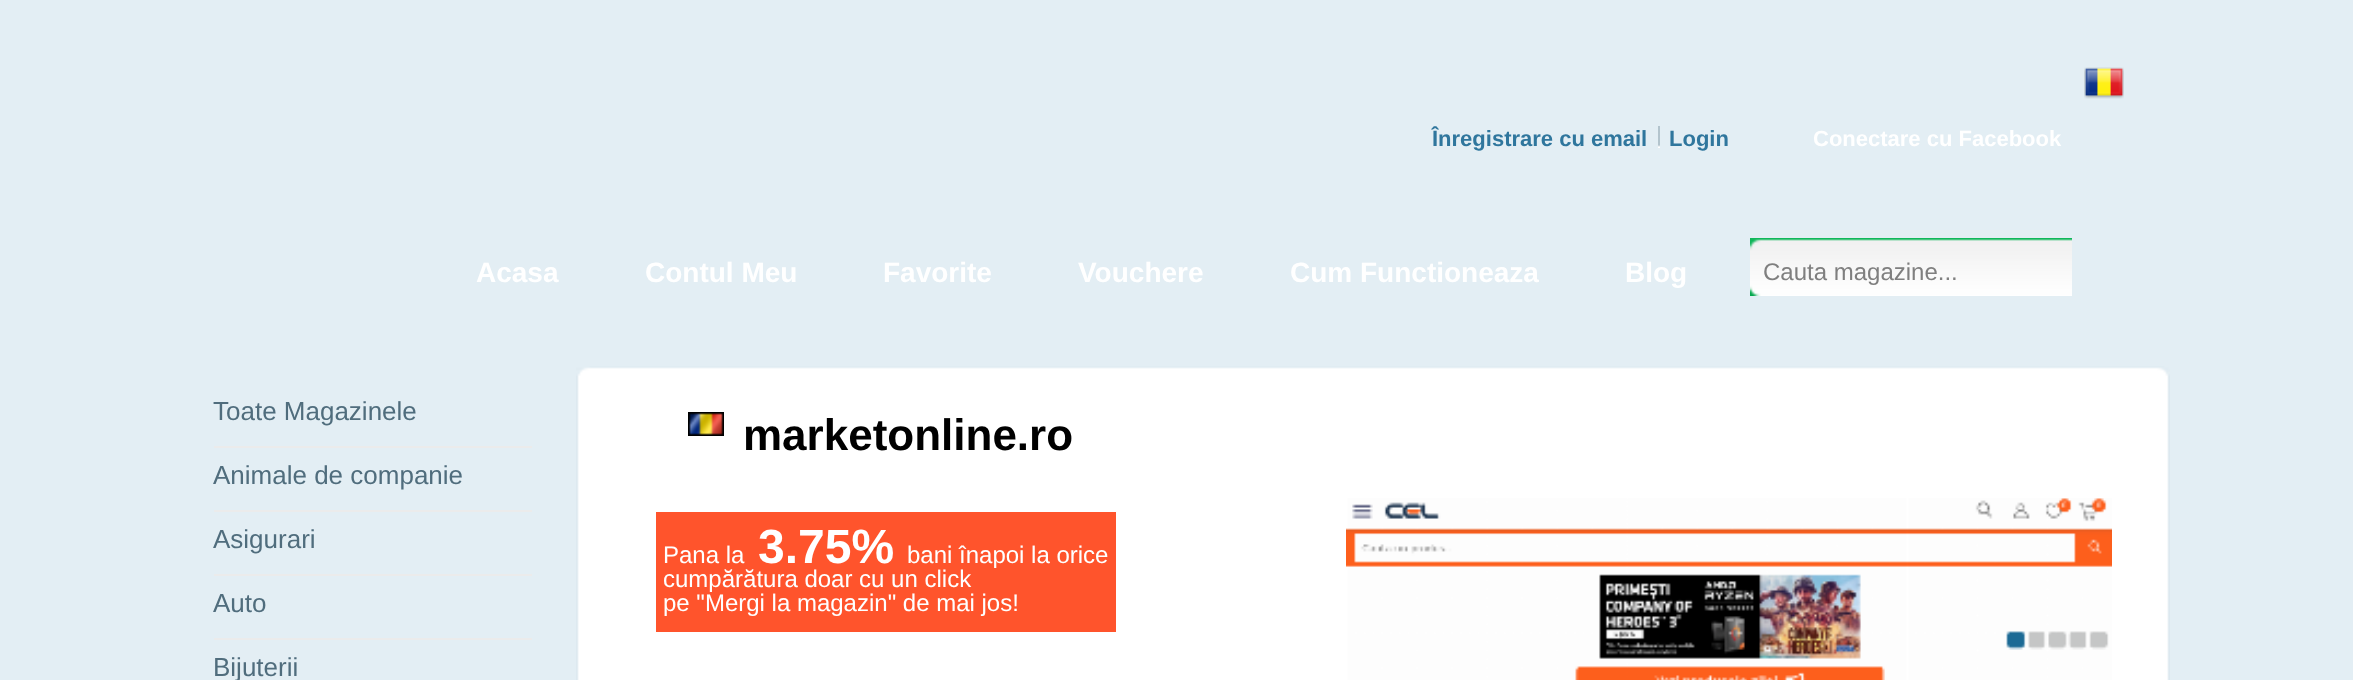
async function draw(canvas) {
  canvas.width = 2353
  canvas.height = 680
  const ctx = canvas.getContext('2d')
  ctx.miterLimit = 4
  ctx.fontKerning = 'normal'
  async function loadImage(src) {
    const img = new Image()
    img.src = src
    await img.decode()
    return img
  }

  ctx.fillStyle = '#e3eef4'
  ctx.fillRect(0, 0, 2353, 680)
  ctx.drawImage(await loadImage('image0.png'), 2084, 67, 40, 32)
  ctx.font = 'bold 22px Liberation Sans'
  ctx.fillStyle = '#2f769d'
  ctx.fillText('Înregistrare cu email', 1432, 146)
  ctx.drawImage(await loadImage('image1.png'), 1658, 126, 2, 22)
  ctx.fillText('Login', 1669, 146)
  ctx.fillStyle = '#fff'
  ctx.fillText('Conectare cu Facebook', 1813, 146)
  ctx.font = 'bold 28px Liberation Sans'
  ctx.fillText('Acasa', 476, 282)
  ctx.fillText('Contul Meu', 645, 282)
  ctx.fillText('Favorite', 883, 282)
  ctx.fillText('Vouchere', 1078, 282)
  ctx.fillText('Cum Functioneaza', 1290, 282)
  ctx.fillText('Blog', 1625, 282)
  ctx.drawImage(await loadImage('image2.png'), 1750, 238, 322, 58)
  ctx.font = '24px Liberation Sans'
  ctx.fillStyle = '#7f7f7f'
  ctx.fillText('Cauta magazine...', 1763, 280)
  ctx.font = '26px Liberation Sans'
  ctx.fillStyle = '#506d7d'
  ctx.fillText('Toate Magazinele', 213, 420)
  ctx.fillStyle = '#ebebeb'
  ctx.fillRect(214, 446, 318, 2)
  ctx.fillStyle = '#506d7d'
  ctx.fillText('Animale de companie', 213, 484)
  ctx.fillStyle = '#ebebeb'
  ctx.fillRect(214, 510, 318, 2)
  ctx.fillStyle = '#506d7d'
  ctx.fillText('Asigurari', 213, 548)
  ctx.fillStyle = '#ebebeb'
  ctx.fillRect(214, 574, 318, 2)
  ctx.fillStyle = '#506d7d'
  ctx.fillText('Auto', 213, 612)
  ctx.fillStyle = '#ebebeb'
  ctx.fillRect(214, 638, 318, 2)
  ctx.fillStyle = '#506d7d'
  ctx.fillText('Bijuterii', 213, 676)
  ctx.drawImage(await loadImage('image3.png'), 576, 376, 1594, 304)
  ctx.drawImage(await loadImage('image4.png'), 576, 366, 1594, 10)
  ctx.drawImage(await loadImage('image5.png'), 688, 412, 36, 24)
  ctx.font = 'bold 44px Liberation Sans'
  ctx.fillStyle = '#000'
  ctx.fillText('marketonline.ro', 743, 450)
  ctx.fillStyle = '#ff542c'
  ctx.fillRect(656, 512, 460, 120)
  ctx.font = '24px Liberation Sans'
  ctx.fillStyle = '#fff'
  ctx.fillText('Pana la', 663, 563)
  ctx.font = 'bold 48px Liberation Sans'
  ctx.fillText('3.75%', 758, 563)
  ctx.font = '24px Liberation Sans'
  ctx.fillText('bani înapoi la orice', 907, 563)
  ctx.fillText('cumpărătura doar cu un click', 663, 587)
  ctx.fillText('pe "Mergi la magazin" de mai jos!', 663, 611)
  ctx.drawImage(await loadImage('image6.png'), 1346, 498, 766, 182)
}

draw(document.querySelector('canvas'))
